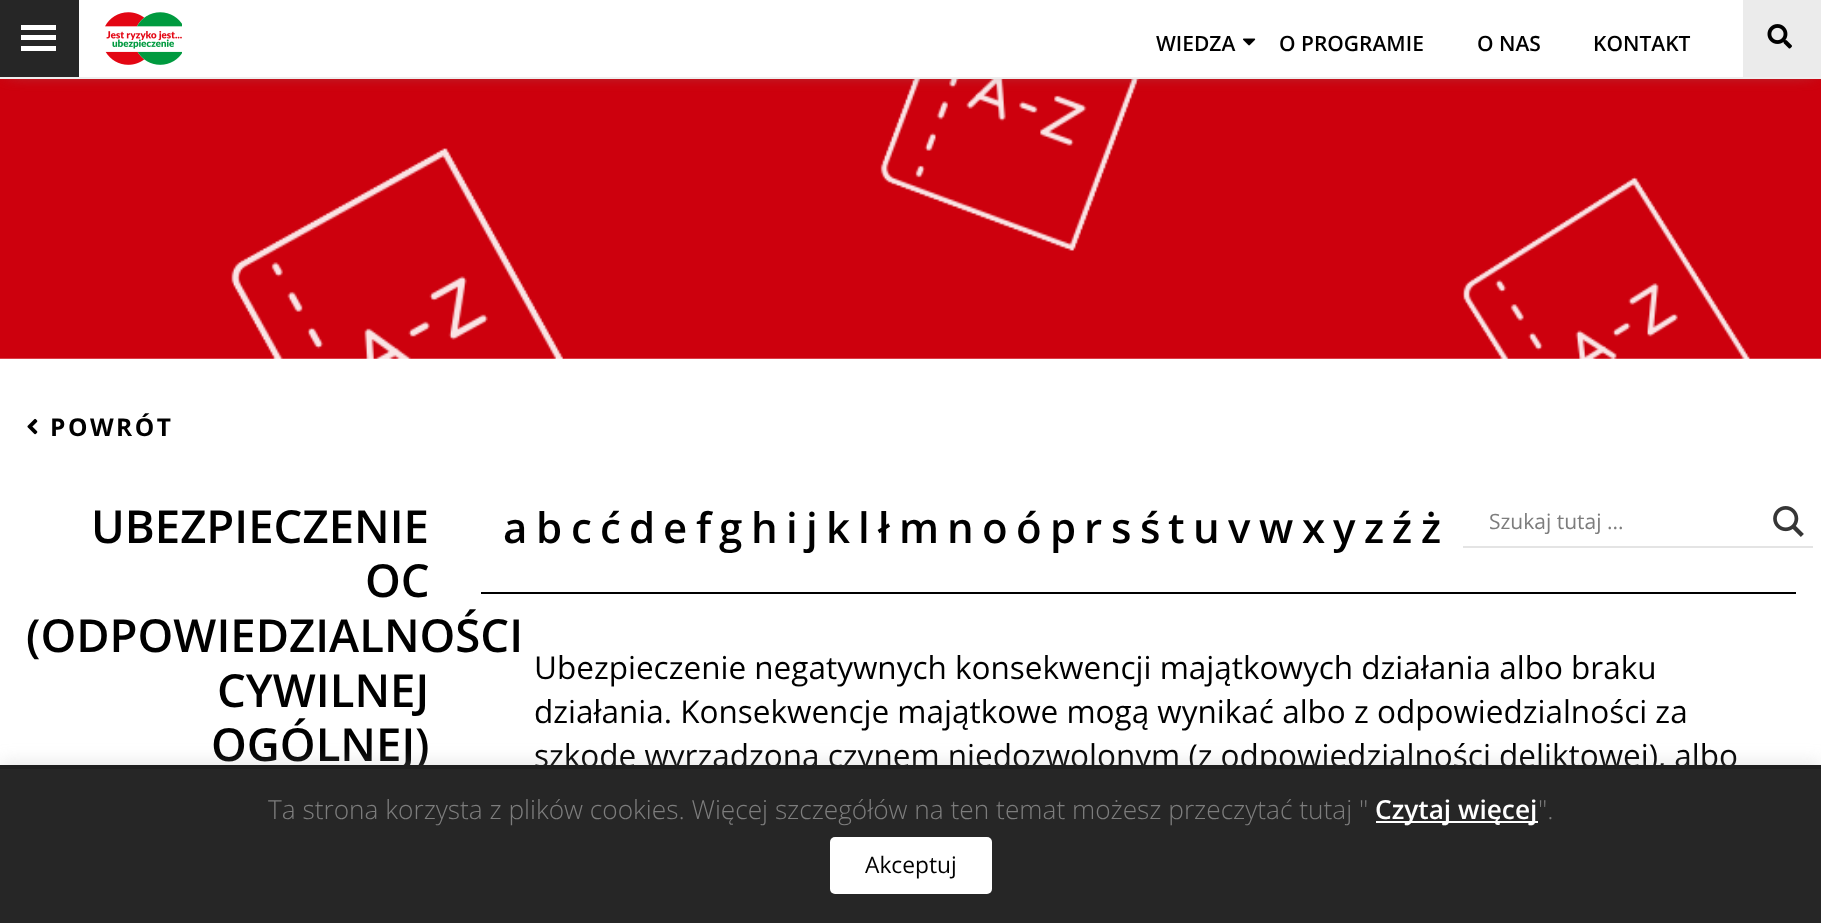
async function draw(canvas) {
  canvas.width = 1821
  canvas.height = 923
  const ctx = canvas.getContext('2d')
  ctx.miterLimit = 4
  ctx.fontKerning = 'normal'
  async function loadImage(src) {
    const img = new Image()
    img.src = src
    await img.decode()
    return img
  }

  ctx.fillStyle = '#fff'
  ctx.fillRect(0, 0, 1821, 923)
  ctx.drawImage(await loadImage('image3.png'), 0, 79, 1821, 280)
  ctx.fillStyle = '#888'
  ctx.filter = 'blur(9px)'
  ctx.beginPath()
  ctx.rect(9, 9, 1804, 61)
  ctx.fill()
  ctx.filter = 'none'
  ctx.fillStyle = '#262626'
  ctx.fillRect(0, 0, 79, 77)
  ctx.fillStyle = '#fff'
  ctx.fillRect(21, 25, 35, 5)
  ctx.fillRect(21, 35, 35, 5)
  ctx.fillRect(21, 46, 35, 5)
  ctx.fillRect(79, 0, 1664, 77)
  ctx.fillStyle = '#eee'
  ctx.fillRect(0, 77, 1821, 2)
  ctx.drawImage(await loadImage('image0.png'), 105, 12, 77, 53)
  ctx.font = '600 21px Open Sans'
  ctx.fillStyle = '#000'
  ctx.fillText('WIEDZA', 1156, 51)
  ctx.drawImage(await loadImage('image1.png'), 1243, 38, 13, 8)
  ctx.fillText('O PROGRAMIE', 1279, 51)
  ctx.fillText('O NAS', 1477, 51)
  ctx.fillText('KONTAKT', 1593, 51)
  ctx.fillStyle = '#ebebeb'
  ctx.fillRect(1743, 0, 78, 77)
  ctx.drawImage(await loadImage('image2.png'), 1767, 24, 25, 25)
  ctx.drawImage(await loadImage('image4.png'), 27, 418, 11, 17)
  ctx.letterSpacing = '2.5px'
  ctx.font = 'bold 24.5px Open Sans'
  ctx.fillStyle = '#000'
  ctx.fillText('POWRÓT', 50, 436)
  ctx.letterSpacing = '0px'
  ctx.font = '600 45.5px Open Sans'
  ctx.fillText('UBEZPIECZENIE', 91, 543)
  ctx.fillText('OC', 365, 597)
  ctx.fillText('(ODPOWIEDZIALNOŚCI', 26, 652)
  ctx.fillText('CYWILNEJ', 217, 707)
  ctx.fillText('OGÓLNEJ)', 211, 761)
  ctx.fillRect(481, 592, 1315, 2)
  ctx.font = '600 42px Open Sans'
  ctx.fillText('a', 503, 543)
  ctx.fillText('b', 536, 543)
  ctx.fillText('c', 571, 543)
  ctx.fillText('ć', 600, 543)
  ctx.fillText('d', 629, 543)
  ctx.fillText('e', 663, 543)
  ctx.fillText('f', 696, 543)
  ctx.fillText('g', 719, 543)
  ctx.fillText('h', 751, 543)
  ctx.fillText('i', 786, 543)
  ctx.fillText('j', 806, 543)
  ctx.fillText('k', 826, 543)
  ctx.fillText('l', 858, 543)
  ctx.fillText('ł', 878, 543)
  ctx.fillText('m', 899, 543)
  ctx.fillText('n', 947, 543)
  ctx.fillText('o', 982, 543)
  ctx.fillText('ó', 1016, 543)
  ctx.fillText('p', 1050, 543)
  ctx.fillText('r', 1084, 543)
  ctx.fillText('s', 1111, 543)
  ctx.fillText('ś', 1140, 543)
  ctx.fillText('t', 1168, 543)
  ctx.fillText('u', 1193, 543)
  ctx.fillText('v', 1228, 543)
  ctx.fillText('w', 1259, 543)
  ctx.fillText('x', 1302, 543)
  ctx.fillText('y', 1333, 543)
  ctx.fillText('z', 1364, 543)
  ctx.fillText('ź', 1392, 543)
  ctx.fillText('ż', 1421, 543)
  ctx.fillStyle = '#e4e4e4'
  ctx.fillRect(1463, 546, 350, 2)
  ctx.font = '21px Open Sans'
  ctx.fillStyle = '#7d7d7d'
  ctx.fillText('Szukaj tutaj ...', 1489, 529)
  ctx.drawImage(await loadImage('image5.png'), 1773, 506, 31, 31)
  ctx.font = '31.5px Open Sans'
  ctx.fillStyle = '#000'
  ctx.fillText('Ubezpieczenie negatywnych konsekwencji majątkowych działania albo braku', 534, 679)
  ctx.fillText('działania. Konsekwencje majątkowe mogą wynikać albo z odpowiedzialności za', 534, 723)
  ctx.fillText('szkodę wyrządzoną czynem niedozwolonym (z odpowiedzialności deliktowej), albo', 534, 767)
  ctx.fillStyle = '#acabab4d'
  ctx.filter = 'blur(9px)'
  ctx.beginPath()
  ctx.rect(0, 763, 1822, 159)
  ctx.fill()
  ctx.filter = 'none'
  ctx.fillStyle = '#262626'
  ctx.fillRect(0, 769, 1821, 154)
  ctx.fillStyle = '#1f1f1f'
  ctx.fillRect(0, 765, 1821, 4)
  ctx.font = '300 26.25px Open Sans'
  ctx.fillStyle = '#7d7d7d'
  ctx.fillText('Ta strona korzysta z plików cookies. Więcej szczegółów na ten temat możesz przeczytać tutaj "', 268, 819)
  ctx.fillStyle = '#fff'
  ctx.fillRect(1376, 821, 162, 2)
  ctx.font = '600 26.25px Open Sans'
  ctx.fillText('Czytaj więcej', 1375, 819)
  ctx.font = '300 26.25px Open Sans'
  ctx.fillStyle = '#7d7d7d'
  ctx.fillText('".', 1538, 819)
  ctx.fillStyle = '#fff'
  ctx.beginPath()
  ctx.roundRect(830, 837, 162, 57, 5)
  ctx.fill()
  ctx.font = '22.75px Open Sans'
  ctx.fillStyle = '#000'
  ctx.fillText('Akceptuj', 865, 873)
}

draw(document.querySelector('canvas'))
